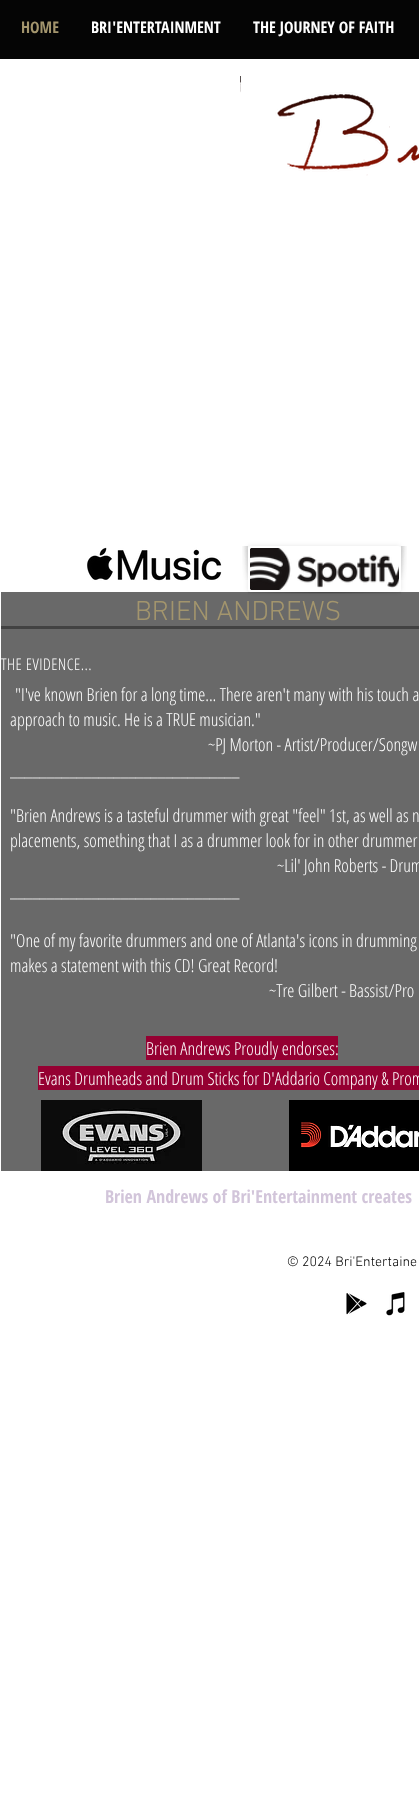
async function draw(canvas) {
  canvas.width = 419
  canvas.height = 1799
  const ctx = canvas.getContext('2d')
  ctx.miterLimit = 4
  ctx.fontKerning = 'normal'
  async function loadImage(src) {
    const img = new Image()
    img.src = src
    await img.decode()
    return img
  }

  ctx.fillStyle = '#fff'
  ctx.fillRect(0, 0, 419, 1799)
  ctx.fillStyle = '#050505'
  ctx.fillRect(0, 0, 419, 59)
  ctx.font = 'bold 16px Open Sans Condensed'
  ctx.fillStyle = '#a3956d'
  ctx.fillText('HOME', 21, 33)
  ctx.fillStyle = '#fff'
  ctx.fillText('BRI\'ENTERTAINMENT', 91, 33)
  ctx.fillText('THE JOURNEY OF FAITH', 253, 33)
  ctx.drawImage(await loadImage('image0.png'), 240, 76, 179, 100)
  ctx.drawImage(await loadImage('image1.png'), 87, 547, 135, 34)
  ctx.fillStyle = '#0000001a'
  ctx.filter = 'blur(2.5px)'
  ctx.beginPath()
  ctx.roundRect(248, 546, 153, 46, 3)
  ctx.fill()
  ctx.filter = 'none'
  ctx.fillStyle = '#fff'
  ctx.beginPath()
  ctx.roundRect(248, 546, 153, 46, 3)
  ctx.fill()
  ctx.drawImage(await loadImage('image2.png'), 250, 548, 149, 42)
  ctx.drawImage(await loadImage('image3.png'), 248, 592, 153, 2)
  ctx.drawImage(await loadImage('image4.png'), 242, 546, 6, 34)
  ctx.drawImage(await loadImage('image5.png'), 401, 546, 6, 34)
  ctx.fillStyle = '#05050599'
  ctx.fillRect(1, 592, 418, 579)
  ctx.font = '300 28px "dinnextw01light"'
  ctx.fillStyle = '#a3956d'
  ctx.fillText('BRIEN ANDREWS', 135, 620)
  ctx.fillStyle = '#424242'
  ctx.fillRect(1, 626, 418, 3)
  ctx.letterSpacing = '0.5px'
  ctx.font = '300 16px Open Sans Condensed'
  ctx.fillStyle = '#fff'
  ctx.fillText('THE EVIDENCE...', 1, 670)
  ctx.letterSpacing = '0px'
  ctx.font = '300 18px Open Sans Condensed'
  ctx.fillText('"I\'ve known Brien for a long time... There aren\'t many with his touch a', 15, 701)
  ctx.fillText('approach to music. He is a TRUE musician."', 10, 726)
  ctx.fillText('~PJ Morton - Artist/Producer/Songw', 208, 751)
  ctx.fillText('_______________________________', 10, 776)
  ctx.fillText('"Brien Andrews is a tasteful drummer with great "feel" 1st, as well as n', 10, 822)
  ctx.fillText('placements, something that I as a drummer look for in other drummer', 10, 847)
  ctx.fillText('~Lil\' John Roberts - Drum', 277, 872)
  ctx.fillText('_______________________________', 10, 897)
  ctx.fillText('"One of my favorite drummers and one of Atlanta\'s icons in drumming', 10, 947)
  ctx.fillText('makes a statement with this CD! Great Record!', 10, 972)
  ctx.fillText('~Tre Gilbert - Bassist/Pro', 269, 997)
  ctx.fillStyle = '#950032'
  ctx.fillRect(146, 1036, 192, 24)
  ctx.fillStyle = '#fff'
  ctx.fillText('Brien Andrews Proudly endorses:', 146, 1055)
  ctx.fillStyle = '#950032'
  ctx.fillRect(38, 1066, 271, 24)
  ctx.fillStyle = '#fff'
  ctx.fillText('Evans Drumheads and Drum Sticks for D\'Addar', 38, 1085)
  ctx.fillStyle = '#950032'
  ctx.fillRect(309, 1066, 110, 24)
  ctx.fillStyle = '#fff'
  ctx.fillText('io Company & Prom', 309, 1085)
  ctx.drawImage(await loadImage('image6.png'), 41, 1100, 161, 71)
  ctx.drawImage(await loadImage('image7.png'), 289, 1100, 130, 71)
  ctx.font = 'bold 18px Open Sans Condensed'
  ctx.fillStyle = '#d2c5da'
  ctx.fillText('Brien Andrews of Bri\'Entertainment creates', 105, 1203)
  ctx.font = '300 14px "dinnextw01light"'
  ctx.fillStyle = '#000'
  ctx.fillText('© 2024 Bri\'Entertaine', 287, 1266)
  ctx.drawImage(await loadImage('image8.png'), 346, 1293, 21, 22)
  ctx.drawImage(await loadImage('image9.png'), 386, 1292, 19, 24)
}

draw(document.querySelector('canvas'))
